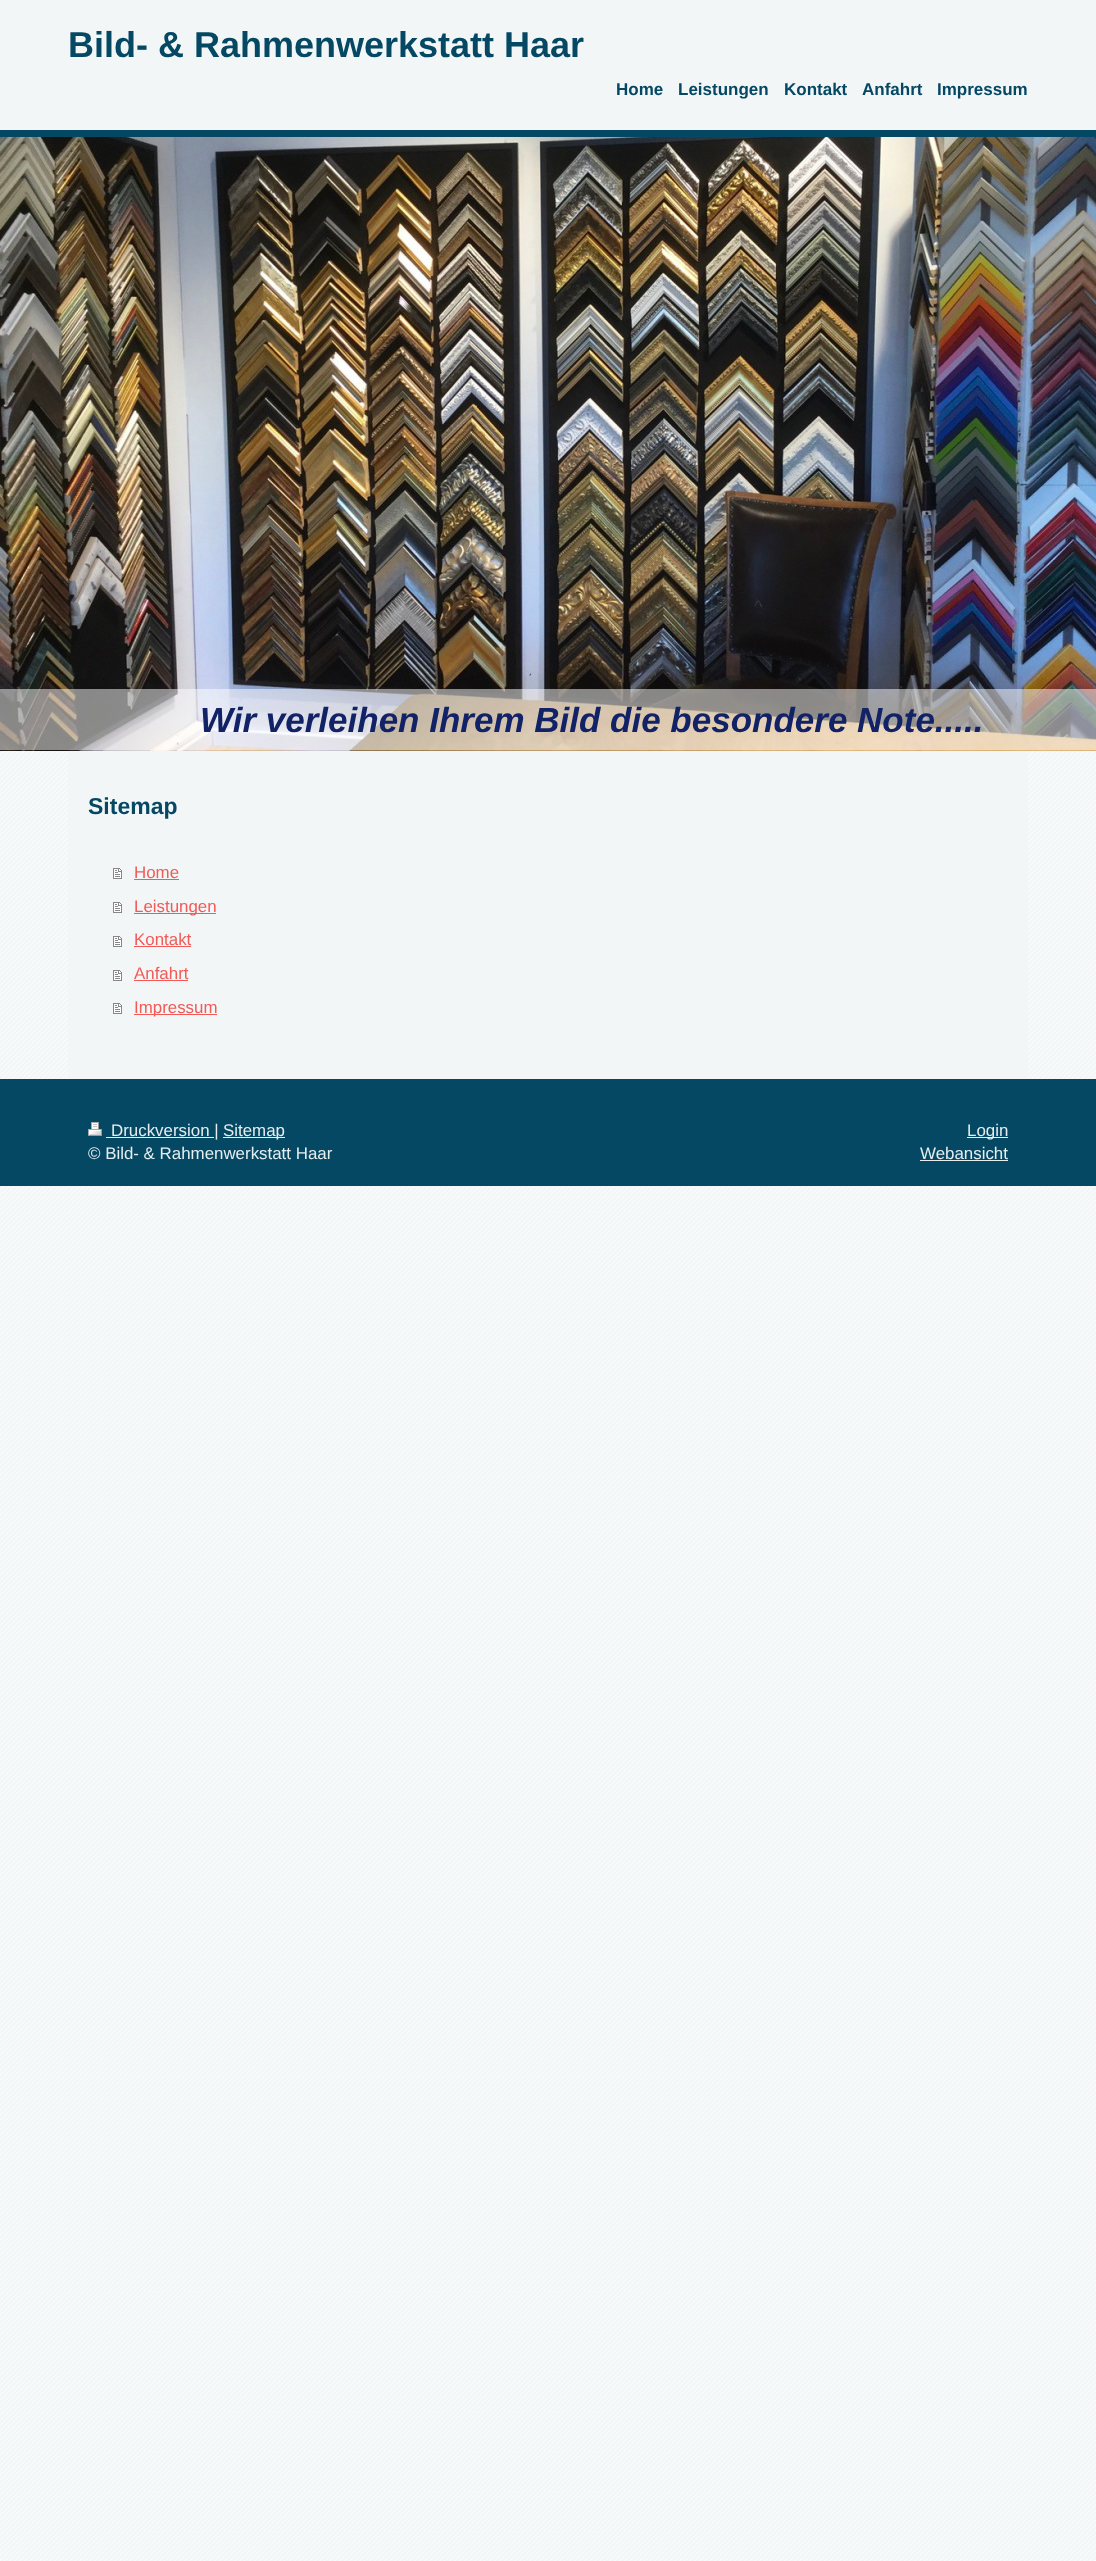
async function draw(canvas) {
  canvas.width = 1096
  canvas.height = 2561
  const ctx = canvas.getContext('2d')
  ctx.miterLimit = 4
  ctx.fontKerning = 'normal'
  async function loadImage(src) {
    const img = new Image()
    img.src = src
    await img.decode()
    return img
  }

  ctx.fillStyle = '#f2f6f7'
  ctx.fillRect(0, 0, 1096, 2561)
  ctx.drawImage(await loadImage('image0.png'), 0, 751, 1096, 1810)
  ctx.fillStyle = '#054863'
  ctx.fillRect(0, 130, 1096, 7)
  ctx.font = 'bold 36px Liberation Sans'
  ctx.fillText('Bild- & Rahmenwerkstatt Haar', 68, 57)
  ctx.font = 'bold 17px Liberation Sans'
  ctx.fillText('Home', 616, 95)
  ctx.fillText('Leistungen', 678, 95)
  ctx.fillText('Kontakt', 784, 95)
  ctx.fillText('Anfahrt', 862, 95)
  ctx.fillText('Impressum', 937, 95)
  ctx.drawImage(await loadImage('image1.png'), 0, 137, 1096, 614)
  ctx.fillStyle = '#ffffff80'
  ctx.fillRect(0, 689, 1096, 61)
  ctx.font = 'italic bold 35px Liberation Sans'
  ctx.fillStyle = '#122267'
  ctx.fillText('Wir verleihen Ihrem Bild die besondere Note.....', 200, 732)
  ctx.fillStyle = '#f2f6f7'
  ctx.fillRect(68, 751, 960, 328)
  ctx.font = 'bold 23px Liberation Sans'
  ctx.fillStyle = '#054863'
  ctx.fillText('Sitemap', 88, 814)
  ctx.drawImage(await loadImage('image2.png'), 113, 868, 9, 11)
  ctx.font = '16.9px Liberation Sans'
  ctx.fillStyle = '#f25a57'
  ctx.fillText('Home', 134, 878)
  ctx.fillRect(134, 879, 45, 1)
  ctx.drawImage(await loadImage('image2.png'), 113, 902, 9, 11)
  ctx.fillRect(134, 913, 82, 1)
  ctx.fillText('Leistungen', 134, 912)
  ctx.drawImage(await loadImage('image2.png'), 113, 936, 9, 11)
  ctx.fillText('Kontakt', 134, 945)
  ctx.fillRect(134, 946, 57, 1)
  ctx.drawImage(await loadImage('image2.png'), 113, 970, 9, 11)
  ctx.fillText('Anfahrt', 134, 979)
  ctx.fillRect(134, 980, 54, 1)
  ctx.drawImage(await loadImage('image2.png'), 113, 1003, 9, 11)
  ctx.fillRect(134, 1014, 83, 1)
  ctx.fillText('Impressum', 134, 1013)
  ctx.fillStyle = '#054863'
  ctx.fillRect(0, 1079, 1096, 107)
  ctx.drawImage(await loadImage('image3.png'), 88, 1122, 14, 14)
  ctx.fillStyle = '#e6edef'
  ctx.fillRect(106, 1137, 108, 1)
  ctx.fillText('Druckversion |', 111, 1136)
  ctx.fillRect(223, 1137, 62, 1)
  ctx.fillText('Sitemap', 223, 1136)
  ctx.fillText('© Bild- & Rahmenwerkstatt Haar', 88, 1159)
  ctx.fillRect(967, 1137, 41, 1)
  ctx.fillText('Login', 967, 1136)
  ctx.fillText('Webansicht', 920, 1159)
  ctx.fillRect(920, 1160, 88, 1)
}

draw(document.querySelector('canvas'))
